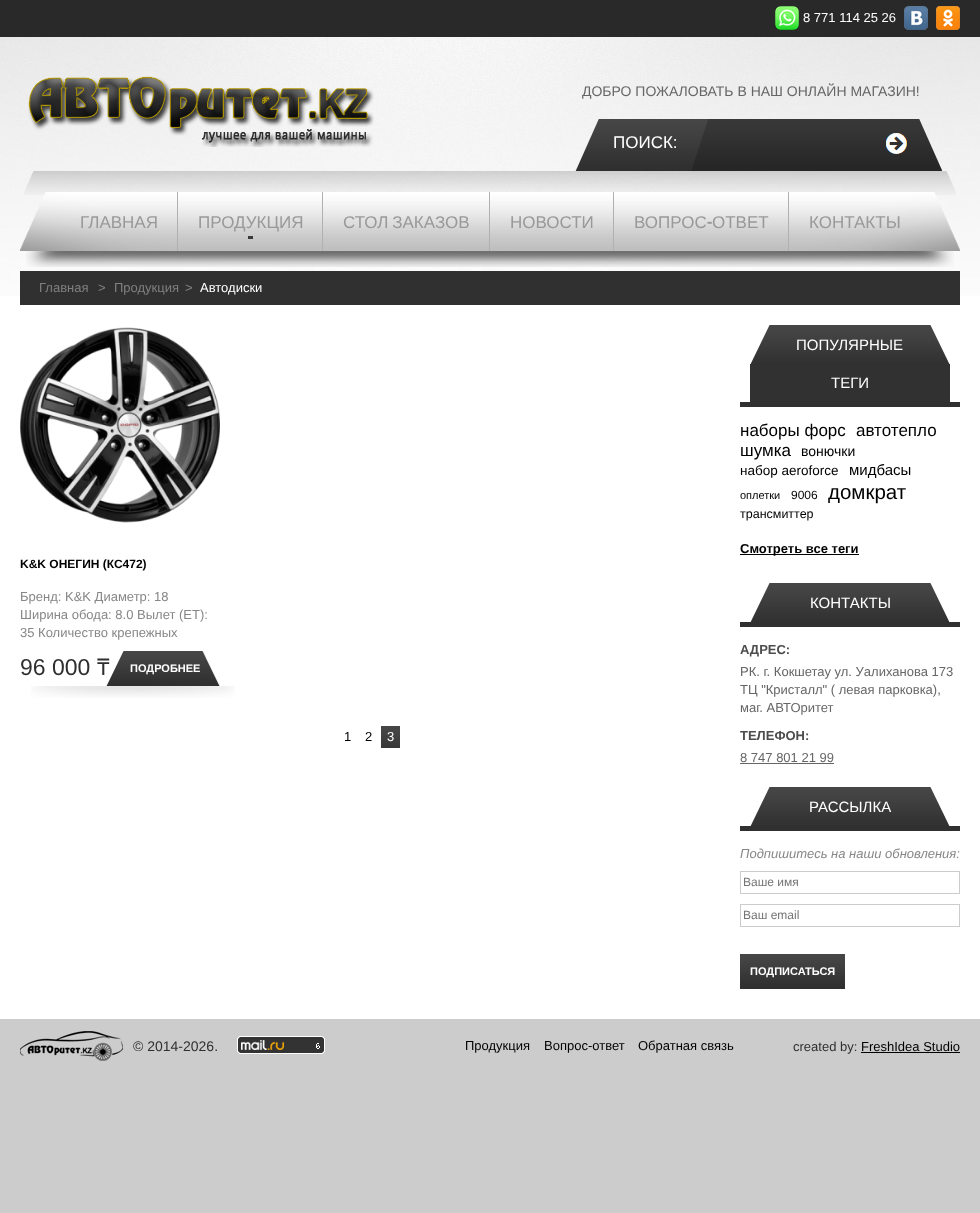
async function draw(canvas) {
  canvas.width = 980
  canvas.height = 1213
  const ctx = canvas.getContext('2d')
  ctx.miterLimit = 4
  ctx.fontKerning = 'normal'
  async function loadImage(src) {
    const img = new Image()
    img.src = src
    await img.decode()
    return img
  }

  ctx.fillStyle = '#ccc'
  ctx.fillRect(0, 0, 980, 1213)
  ctx.fillStyle = '#fff'
  ctx.fillRect(0, 296, 980, 723)
  ctx.drawImage(await loadImage('image0.png'), 0, 37, 980, 259)
  ctx.fillStyle = '#292929'
  ctx.fillRect(0, 0, 980, 37)
  ctx.drawImage(await loadImage('image1.png'), 775, 6, 24, 24)
  ctx.font = '13px Liberation Sans'
  ctx.fillStyle = '#fff'
  ctx.fillText('8 771 114 25 26', 803, 22)
  ctx.drawImage(await loadImage('image2.png'), 904, 6, 24, 24)
  ctx.drawImage(await loadImage('image3.png'), 936, 6, 24, 24)
  ctx.drawImage(await loadImage('image4.png'), 28, 76, 346, 71)
  ctx.font = '14px Liberation Sans'
  ctx.fillStyle = '#666'
  ctx.fillText('ДОБРО ПОЖАЛОВАТЬ В НАШ ОНЛАЙН МАГАЗИН!', 582, 96)
  ctx.drawImage(await loadImage('image5.png'), 691, 119, 226, 52)
  ctx.drawImage(await loadImage('image6.png'), 575, 119, 25, 52)
  ctx.drawImage(await loadImage('image7.png'), 600, 119, 91, 52)
  ctx.font = '17px Liberation Sans'
  ctx.fillStyle = '#fff'
  ctx.fillText('ПОИСК:', 613, 148)
  ctx.drawImage(await loadImage('image8.png'), 691, 119, 17, 51)
  ctx.drawImage(await loadImage('image9.png'), 886, 133, 21, 21)
  ctx.drawImage(await loadImage('image10.png'), 917, 119, 25, 52)
  ctx.drawImage(await loadImage('image11.png'), 24, 171, 932, 24)
  ctx.drawImage(await loadImage('image12.png'), 20, 192, 940, 59)
  ctx.fillStyle = '#b0b0b0'
  ctx.fillRect(177, 192, 1, 59)
  ctx.fillStyle = '#999'
  ctx.fillText('ГЛАВНАЯ', 80, 228)
  ctx.fillStyle = '#b0b0b0'
  ctx.fillRect(322, 192, 1, 59)
  ctx.fillStyle = '#3a3a3a'
  ctx.fillRect(248, 236, 5, 3)
  ctx.fillStyle = '#999'
  ctx.fillText('ПРОДУКЦИЯ', 198, 228)
  ctx.fillStyle = '#b0b0b0'
  ctx.fillRect(489, 192, 1, 59)
  ctx.wordSpacing = '-1px'
  ctx.fillStyle = '#999'
  ctx.fillText('СТОЛ ЗАКАЗОВ', 343, 228)
  ctx.fillStyle = '#b0b0b0'
  ctx.fillRect(613, 192, 1, 59)
  ctx.wordSpacing = '0px'
  ctx.fillStyle = '#999'
  ctx.fillText('НОВОСТИ', 510, 228)
  ctx.fillStyle = '#b0b0b0'
  ctx.fillRect(788, 192, 1, 59)
  ctx.fillStyle = '#999'
  ctx.fillText('ВОПРОС', 634, 228)
  ctx.font = '17px Anton'
  ctx.fillText('-', 707, 228)
  ctx.font = '17px Liberation Sans'
  ctx.fillText('ОТВЕТ', 712, 228)
  ctx.fillText('КОНТАКТЫ', 809, 228)
  ctx.drawImage(await loadImage('image13.png'), 26, 251, 928, 16)
  ctx.fillStyle = '#303030'
  ctx.fillRect(20, 271, 940, 34)
  ctx.font = '13px Liberation Sans'
  ctx.fillStyle = '#818080'
  ctx.fillText('Главная', 39, 292)
  ctx.fillText('>', 98, 292)
  ctx.fillText('Продукция', 114, 292)
  ctx.fillText('>', 185, 292)
  ctx.fillStyle = '#fff'
  ctx.fillText('Автодиски', 200, 292)
  ctx.drawImage(await loadImage('image14.png'), 20, 327, 200, 196)
  ctx.font = 'bold 12px Liberation Sans'
  ctx.fillStyle = '#000'
  ctx.fillText('K&K ОНЕГИН (КС472)', 20, 568)
  ctx.font = '13px Liberation Sans'
  ctx.fillStyle = '#878787'
  ctx.fillText('Бренд: K&K Диаметр: 18', 20, 601)
  ctx.fillText('Ширина обода: 8.0 Вылет (ET):', 20, 619)
  ctx.fillText('35 Количество крепежных', 20, 637)
  ctx.font = '23px Liberation Sans'
  ctx.fillStyle = '#2f2f2f'
  ctx.fillText('96 000', 20, 675)
  ctx.font = '23px Noto Sans'
  ctx.fillText('₸', 97, 675)
  ctx.drawImage(await loadImage('image15.png'), 106, 651, 19, 35)
  ctx.drawImage(await loadImage('image16.png'), 125, 651, 95, 35)
  ctx.font = 'bold 11px Liberation Sans'
  ctx.fillStyle = '#fff'
  ctx.fillText('ПОДРОБНЕЕ', 130, 672)
  ctx.drawImage(await loadImage('image17.png'), 31, 686, 204, 12)
  ctx.font = '13px Liberation Sans'
  ctx.fillStyle = '#000'
  ctx.fillText('1', 344, 741)
  ctx.fillText('2', 365, 741)
  ctx.drawImage(await loadImage('image18.png'), 381, 726, 19, 22)
  ctx.fillStyle = '#fff'
  ctx.fillText('3', 387, 741)
  ctx.fillStyle = '#303030'
  ctx.fillRect(740, 402, 220, 5)
  ctx.drawImage(await loadImage('image19.png'), 770, 325, 180, 39)
  ctx.fillStyle = '#313131'
  ctx.fillRect(750, 364, 200, 38)
  ctx.drawImage(await loadImage('image20.png'), 750, 325, 20, 39)
  ctx.font = '15px Liberation Sans'
  ctx.fillStyle = '#fff'
  ctx.fillText('ПОПУЛЯРНЫЕ', 796, 350)
  ctx.fillText('ТЕГИ', 831, 388)
  ctx.font = '17px Liberation Sans'
  ctx.fillStyle = '#000'
  ctx.fillText('наборы форс', 740, 436)
  ctx.fillText('автотепло', 856, 436)
  ctx.fillText('шумка', 740, 456)
  ctx.font = '14px Liberation Sans'
  ctx.fillText('вонючки', 801, 456)
  ctx.font = '13.5px Liberation Sans'
  ctx.fillText('набор aeroforce', 740, 475)
  ctx.font = '15px Liberation Sans'
  ctx.fillText('мидбасы', 849, 475)
  ctx.font = '11px Liberation Sans'
  ctx.fillText('оплетки', 740, 499)
  ctx.font = '12px Liberation Sans'
  ctx.fillText('9006', 791, 499)
  ctx.font = '20.5px Liberation Sans'
  ctx.fillText('домкрат', 828, 499)
  ctx.font = '12.5px Liberation Sans'
  ctx.fillText('трансмиттер', 740, 518)
  ctx.fillRect(740, 554, 119, 1)
  ctx.font = 'bold 13px Liberation Sans'
  ctx.fillText('Смотреть все теги', 740, 553)
  ctx.fillStyle = '#303030'
  ctx.fillRect(740, 622, 220, 5)
  ctx.drawImage(await loadImage('image19.png'), 770, 583, 180, 39)
  ctx.drawImage(await loadImage('image20.png'), 750, 583, 20, 39)
  ctx.font = '15px Liberation Sans'
  ctx.fillStyle = '#fff'
  ctx.fillText('КОНТАКТЫ', 810, 608)
  ctx.font = 'bold 13px Liberation Sans'
  ctx.fillStyle = '#4d4d4d'
  ctx.fillText('АДРЕС:', 740, 654)
  ctx.font = '13px Liberation Sans'
  ctx.fillStyle = '#666'
  ctx.fillText('РК. г. Кокшетау ул. Уалиханова 173', 740, 676)
  ctx.fillText('ТЦ "Кристалл" ( левая парковка),', 740, 694)
  ctx.fillText('маг. АВТОритет', 740, 712)
  ctx.font = 'bold 13px Liberation Sans'
  ctx.fillStyle = '#4d4d4d'
  ctx.fillText('ТЕЛЕФОН:', 740, 740)
  ctx.font = '13px Liberation Sans'
  ctx.fillStyle = '#666'
  ctx.fillText('8 747 801 21 99', 740, 762)
  ctx.fillRect(740, 763, 94, 1)
  ctx.fillStyle = '#303030'
  ctx.fillRect(740, 826, 220, 5)
  ctx.drawImage(await loadImage('image19.png'), 770, 787, 180, 39)
  ctx.drawImage(await loadImage('image20.png'), 750, 787, 20, 39)
  ctx.font = '15px Liberation Sans'
  ctx.fillStyle = '#fff'
  ctx.fillText('РАССЫЛКА', 809, 812)
  ctx.font = 'italic 13px Liberation Sans'
  ctx.fillStyle = '#878787'
  ctx.fillText('Подпишитесь на наши обновления:', 740, 858)
  ctx.strokeStyle = '#ccc'
  ctx.strokeRect(740.5, 871.5, 219, 22)
  ctx.font = '12px Liberation Sans'
  ctx.fillStyle = '#757575'
  ctx.fillText('Ваше имя', 743, 886)
  ctx.strokeRect(740.5, 904.5, 219, 22)
  ctx.fillText('Ваш email', 743, 919)
  ctx.drawImage(await loadImage('image21.png'), 740, 954, 105, 35)
  ctx.font = 'bold 11px Liberation Sans'
  ctx.fillStyle = '#fff'
  ctx.fillText('ПОДПИСАТЬСЯ', 750, 975)
  ctx.drawImage(await loadImage('image22.png'), 20, 1031, 103, 30)
  ctx.font = '14px Liberation Sans'
  ctx.fillStyle = '#2f2f2f'
  ctx.fillText('© 2014-2026.', 133, 1051)
  ctx.drawImage(await loadImage('image23.png'), 237, 1036, 88, 18)
  ctx.font = '13px Liberation Sans'
  ctx.fillStyle = '#000'
  ctx.fillText('Продукция', 465, 1050)
  ctx.fillText('Вопрос-ответ', 544, 1050)
  ctx.fillText('Обратная связь', 638, 1050)
  ctx.fillStyle = '#2f2f2f'
  ctx.fillText('created by:', 793, 1051)
  ctx.fillStyle = '#000'
  ctx.fillText('FreshIdea Studio', 861, 1051)
  ctx.fillRect(861, 1052, 99, 1)
}

draw(document.querySelector('canvas'))
